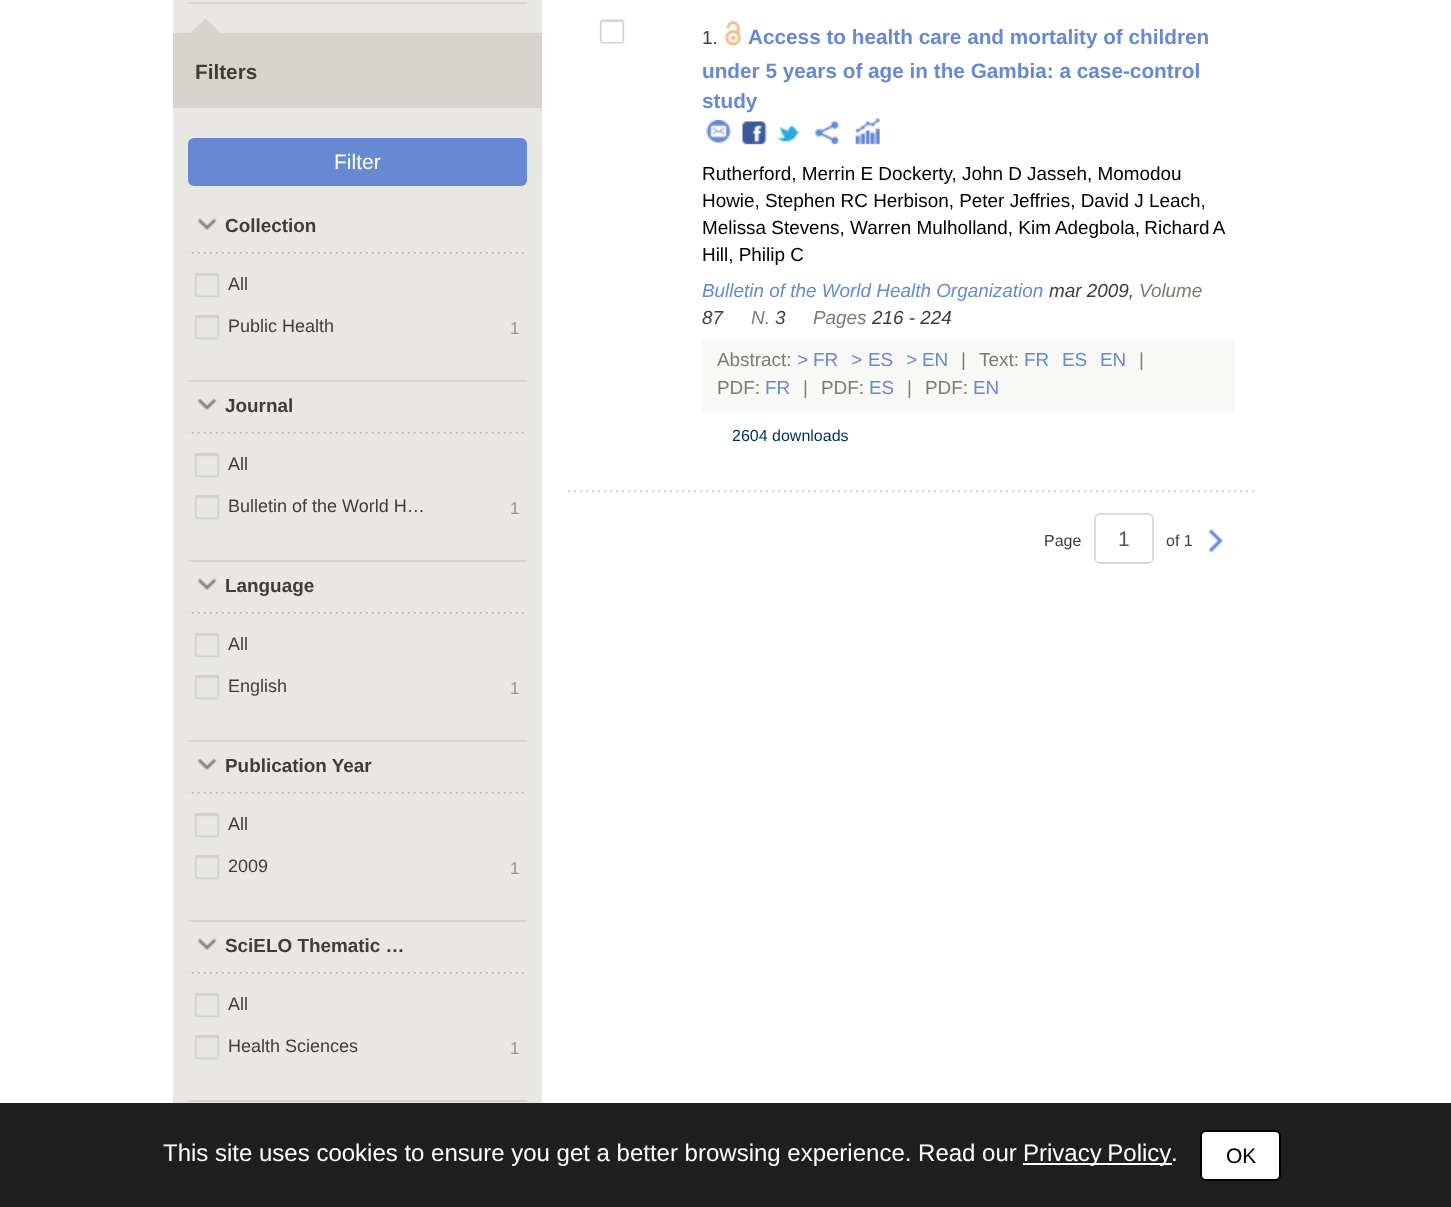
async function draw(canvas) {
  canvas.width = 1451
  canvas.height = 1207
  const ctx = canvas.getContext('2d')
  ctx.miterLimit = 4
  ctx.fontKerning = 'normal'
  async function loadImage(src) {
    const img = new Image()
    img.src = src
    await img.decode()
    return img
  }

  ctx.fillStyle = '#fff'
  ctx.fillRect(0, 0, 1451, 1207)
  ctx.fillStyle = '#e9e7e4'
  ctx.fillRect(173, 0, 369, 1103)
  ctx.fillStyle = '#d7d4d0'
  ctx.fillRect(188, 2, 339, 2)
  ctx.fillRect(173, 33, 369, 75)
  ctx.beginPath()
  ctx.moveTo(220.5, 33)
  ctx.lineTo(190.5, 33)
  ctx.lineTo(205.5, 18)
  ctx.closePath()
  ctx.fill()
  ctx.font = 'bold 20.75px Liberation Sans'
  ctx.fillStyle = '#403d39'
  ctx.fillText('Filters', 195, 79)
  ctx.fillStyle = '#6789d3'
  ctx.beginPath()
  ctx.roundRect(188, 138, 339, 48, 6)
  ctx.fill()
  ctx.font = '21px Liberation Sans'
  ctx.fillStyle = '#fff'
  ctx.fillText('Filter', 334, 169)
  ctx.drawImage(await loadImage('image0.png'), 187, 252, 337, 2)
  ctx.drawImage(await loadImage('image1.png'), 197, 218, 20, 12)
  ctx.font = 'bold 18.9px Liberation Sans'
  ctx.fillStyle = '#403d39'
  ctx.fillText('Collection', 225, 232)
  ctx.fillStyle = '#d7d4d0'
  ctx.fillRect(188, 380, 339, 2)
  ctx.drawImage(await loadImage('image2.png'), 195, 272, 25, 26)
  ctx.font = '18px Liberation Sans'
  ctx.fillStyle = '#403d39'
  ctx.fillText('All', 228, 290)
  ctx.drawImage(await loadImage('image2.png'), 195, 314, 25, 26)
  ctx.fillText('Public Health', 228, 332)
  ctx.font = '17px Liberation Sans'
  ctx.fillStyle = '#94928f'
  ctx.fillText('1', 510, 334)
  ctx.drawImage(await loadImage('image0.png'), 187, 432, 337, 2)
  ctx.drawImage(await loadImage('image1.png'), 197, 398, 20, 12)
  ctx.font = 'bold 18.9px Liberation Sans'
  ctx.fillStyle = '#403d39'
  ctx.fillText('Journal', 225, 412)
  ctx.fillStyle = '#d7d4d0'
  ctx.fillRect(188, 560, 339, 2)
  ctx.drawImage(await loadImage('image2.png'), 195, 452, 25, 26)
  ctx.font = '18px Liberation Sans'
  ctx.fillStyle = '#403d39'
  ctx.fillText('All', 228, 470)
  ctx.drawImage(await loadImage('image2.png'), 195, 494, 25, 26)
  ctx.fillText('Bulletin of the World H…', 228, 512)
  ctx.font = '17px Liberation Sans'
  ctx.fillStyle = '#94928f'
  ctx.fillText('1', 510, 514)
  ctx.drawImage(await loadImage('image0.png'), 187, 612, 337, 2)
  ctx.drawImage(await loadImage('image1.png'), 197, 578, 20, 12)
  ctx.font = 'bold 18.9px Liberation Sans'
  ctx.fillStyle = '#403d39'
  ctx.fillText('Language', 225, 592)
  ctx.fillStyle = '#d7d4d0'
  ctx.fillRect(188, 740, 339, 2)
  ctx.drawImage(await loadImage('image2.png'), 195, 632, 25, 26)
  ctx.font = '18px Liberation Sans'
  ctx.fillStyle = '#403d39'
  ctx.fillText('All', 228, 650)
  ctx.drawImage(await loadImage('image2.png'), 195, 674, 25, 26)
  ctx.fillText('English', 228, 692)
  ctx.font = '17px Liberation Sans'
  ctx.fillStyle = '#94928f'
  ctx.fillText('1', 510, 694)
  ctx.drawImage(await loadImage('image0.png'), 187, 792, 337, 2)
  ctx.drawImage(await loadImage('image1.png'), 197, 758, 20, 12)
  ctx.font = 'bold 18.9px Liberation Sans'
  ctx.fillStyle = '#403d39'
  ctx.fillText('Publication Year', 225, 772)
  ctx.fillStyle = '#d7d4d0'
  ctx.fillRect(188, 920, 339, 2)
  ctx.drawImage(await loadImage('image2.png'), 195, 812, 25, 26)
  ctx.font = '18px Liberation Sans'
  ctx.fillStyle = '#403d39'
  ctx.fillText('All', 228, 830)
  ctx.drawImage(await loadImage('image2.png'), 195, 854, 25, 26)
  ctx.fillText('2009', 228, 872)
  ctx.font = '17px Liberation Sans'
  ctx.fillStyle = '#94928f'
  ctx.fillText('1', 510, 874)
  ctx.drawImage(await loadImage('image0.png'), 187, 972, 337, 2)
  ctx.drawImage(await loadImage('image1.png'), 197, 938, 20, 12)
  ctx.font = 'bold 18.9px Liberation Sans'
  ctx.fillStyle = '#403d39'
  ctx.fillText('SciELO Thematic …', 225, 952)
  ctx.fillStyle = '#d7d4d0'
  ctx.fillRect(188, 1100, 339, 2)
  ctx.drawImage(await loadImage('image2.png'), 195, 992, 25, 26)
  ctx.font = '18px Liberation Sans'
  ctx.fillStyle = '#403d39'
  ctx.fillText('All', 228, 1010)
  ctx.drawImage(await loadImage('image2.png'), 195, 1034, 25, 26)
  ctx.fillText('Health Sciences', 228, 1052)
  ctx.font = '17px Liberation Sans'
  ctx.fillStyle = '#94928f'
  ctx.fillText('1', 510, 1054)
  ctx.drawImage(await loadImage('image3.png'), 599, 19, 26, 25)
  ctx.font = '18.9px Liberation Sans'
  ctx.fillStyle = '#403d39'
  ctx.fillText('1.', 702, 44)
  ctx.drawImage(await loadImage('image4.png'), 724, 21, 18, 24)
  ctx.font = 'bold 20.75px Liberation Sans'
  ctx.fillStyle = '#6789d3'
  ctx.fillText('Access to health care and mortality of children', 748, 44)
  ctx.fillText('under 5 years of age in the Gambia: a case-control', 702, 78)
  ctx.fillText('study', 702, 108)
  ctx.drawImage(await loadImage('image5.png'), 706, 120, 25, 23)
  ctx.drawImage(await loadImage('image6.png'), 742, 121, 25, 24)
  ctx.drawImage(await loadImage('image7.png'), 777, 125, 23, 18)
  ctx.drawImage(await loadImage('image8.png'), 815, 121, 25, 24)
  ctx.drawImage(await loadImage('image9.png'), 855, 118, 25, 27)
  ctx.font = '18.9px Liberation Sans'
  ctx.fillStyle = '#000'
  ctx.fillText('Rutherford, Merrin E Dockerty, John D Jasseh, Momodou', 702, 180)
  ctx.fillText('Howie, Stephen RC Herbison, Peter Jeffries, David J Leach,', 702, 207)
  ctx.fillText('Melissa Stevens, Warren Mulholland, Kim', 702, 234)
  ctx.wordSpacing = '-1px'
  ctx.fillText('Adegbola, Richard A', 1055, 234)
  ctx.wordSpacing = '0px'
  ctx.fillText('Hill, Philip C', 702, 261)
  ctx.font = 'italic 18.9px Liberation Sans'
  ctx.fillStyle = '#6789d3'
  ctx.fillText('Bulletin of the World Health Organization', 702, 297)
  ctx.fillStyle = '#403d39'
  ctx.fillText('mar 2009,', 1049, 297)
  ctx.fillStyle = '#7f7a71'
  ctx.fillText('Volume', 1139, 297)
  ctx.fillStyle = '#403d39'
  ctx.fillText('87', 702, 324)
  ctx.fillStyle = '#7f7a71'
  ctx.fillText('N.', 751, 324)
  ctx.fillStyle = '#403d39'
  ctx.fillText('3', 775, 324)
  ctx.fillStyle = '#7f7a71'
  ctx.fillText('Pages', 813, 324)
  ctx.fillStyle = '#403d39'
  ctx.fillText('216 - 224', 872, 324)
  ctx.fillStyle = '#f8f8f6'
  ctx.beginPath()
  ctx.roundRect(702, 338, 533, 76, 3)
  ctx.fill()
  ctx.font = '18.9px Liberation Sans'
  ctx.fillStyle = '#7f7a71'
  ctx.fillText('Abstract:', 717, 366)
  ctx.font = '18.9px Liberation Mono'
  ctx.fillStyle = '#6789d3'
  ctx.fillText('>', 797, 366)
  ctx.font = '18.9px Liberation Sans'
  ctx.fillText('FR', 813, 366)
  ctx.font = '18.9px Liberation Mono'
  ctx.fillText('>', 851, 366)
  ctx.font = '18.9px Liberation Sans'
  ctx.fillText('ES', 868, 366)
  ctx.font = '18.9px Liberation Mono'
  ctx.fillText('>', 906, 366)
  ctx.font = '18.9px Liberation Sans'
  ctx.fillText('EN', 922, 366)
  ctx.fillStyle = '#7f7a71'
  ctx.fillText('|', 961, 366)
  ctx.fillText('Text:', 979, 366)
  ctx.fillStyle = '#6789d3'
  ctx.fillText('FR', 1024, 366)
  ctx.fillText('ES', 1062, 366)
  ctx.fillText('EN', 1100, 366)
  ctx.fillStyle = '#7f7a71'
  ctx.fillText('|', 1139, 366)
  ctx.fillText('PDF:', 717, 394)
  ctx.fillStyle = '#6789d3'
  ctx.fillText('FR', 765, 394)
  ctx.fillStyle = '#7f7a71'
  ctx.fillText('|', 803, 394)
  ctx.fillText('PDF:', 821, 394)
  ctx.fillStyle = '#6789d3'
  ctx.fillText('ES', 869, 394)
  ctx.fillStyle = '#7f7a71'
  ctx.fillText('|', 907, 394)
  ctx.fillText('PDF:', 925, 394)
  ctx.fillStyle = '#6789d3'
  ctx.fillText('EN', 973, 394)
  ctx.font = '16px Liberation Sans'
  ctx.fillStyle = '#00314c'
  ctx.fillText('2604 downloads', 732, 441)
  ctx.drawImage(await loadImage('image10.png'), 564, 490, 691, 2)
  ctx.fillStyle = '#403d39'
  ctx.fillText('Page', 1044, 546)
  ctx.beginPath()
  ctx.roundRect(1095, 514, 58, 49, 5)
  ctx.strokeStyle = '#dddbd7'
  ctx.lineWidth = 2
  ctx.stroke()
  ctx.font = '21px Liberation Sans'
  ctx.fillStyle = '#555'
  ctx.fillText('1', 1118, 546)
  ctx.font = '16px Liberation Sans'
  ctx.fillStyle = '#403d39'
  ctx.fillText('of 1', 1166, 546)
  ctx.drawImage(await loadImage('image11.png'), 1208, 529, 15, 24)
  ctx.fillStyle = '#1f1f1f'
  ctx.fillRect(0, 1103, 1451, 104)
  ctx.font = '24px Liberation Sans'
  ctx.fillStyle = '#fff'
  ctx.fillText('This site uses cookies to ensure you get a better browsing experience. Read our', 163, 1161)
  ctx.fillRect(1023, 1163, 149, 2)
  ctx.wordSpacing = '-1px'
  ctx.fillText('Privacy Policy', 1023, 1161)
  ctx.wordSpacing = '0px'
  ctx.fillText('.', 1171, 1161)
  ctx.beginPath()
  ctx.roundRect(1201, 1131, 79, 49, 5)
  ctx.fill()
  ctx.strokeStyle = '#000'
  ctx.stroke()
  ctx.font = '21px Liberation Sans'
  ctx.fillStyle = '#000'
  ctx.fillText('OK', 1226, 1163)
}

draw(document.querySelector('canvas'))
